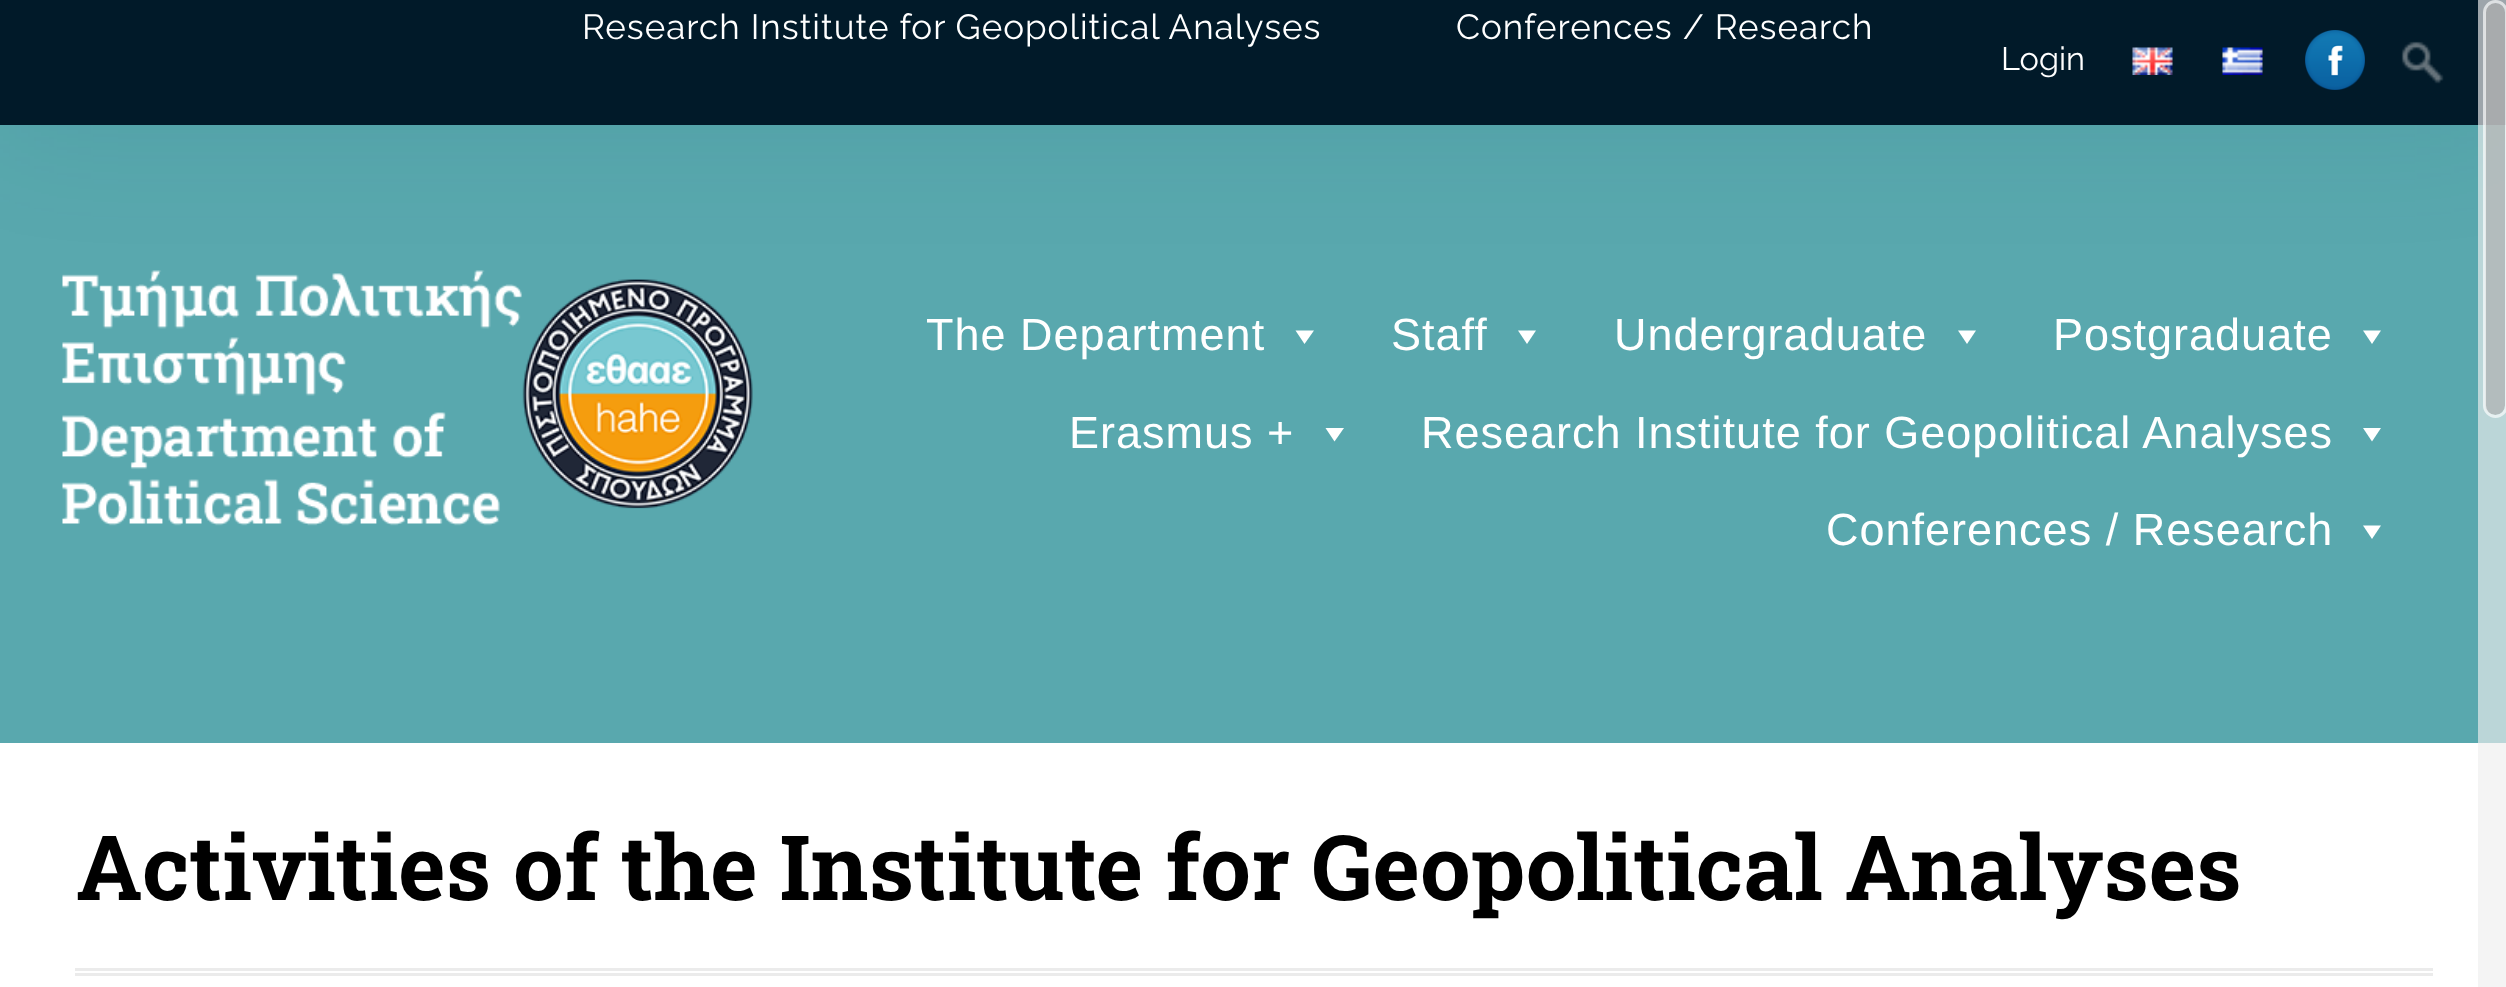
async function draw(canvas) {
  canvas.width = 2506
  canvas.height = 987
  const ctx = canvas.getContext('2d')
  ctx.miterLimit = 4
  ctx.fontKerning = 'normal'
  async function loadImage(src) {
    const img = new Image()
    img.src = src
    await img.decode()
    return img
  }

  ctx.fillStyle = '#fff'
  ctx.fillRect(0, 0, 2506, 987)
  ctx.fillStyle = '#59a8ae'
  ctx.fillRect(0, 125, 2506, 618)
  ctx.fillStyle = '#004f551a'
  ctx.filter = 'blur(62.5px)'
  ctx.beginPath()
  ctx.rect(0, 0, 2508, 125)
  ctx.fill()
  ctx.filter = 'none'
  ctx.fillStyle = '#011a29'
  ctx.fillRect(0, 0, 2506, 125)
  ctx.letterSpacing = '1px'
  ctx.font = '35px Raleway'
  ctx.fillStyle = '#fff'
  ctx.fillText('Research Institute for Geopolitical Analyses', 582, 39)
  ctx.fillText('Conferences / Research', 1456, 39)
  ctx.drawImage(await loadImage('image0.png'), 62, 270, 691, 256)
  ctx.font = '45px Liberation Sans'
  ctx.fillText('The Department', 926, 350)
  ctx.beginPath()
  ctx.moveTo(1314, 330.5)
  ctx.lineTo(1304.5, 344)
  ctx.lineTo(1295.5, 330.5)
  ctx.closePath()
  ctx.fill()
  ctx.fillText('Staff', 1391, 350)
  ctx.beginPath()
  ctx.moveTo(1536, 330.5)
  ctx.lineTo(1527, 344)
  ctx.lineTo(1518, 330.5)
  ctx.closePath()
  ctx.fill()
  ctx.fillText('Undergraduate', 1614, 350)
  ctx.beginPath()
  ctx.moveTo(1976, 330.5)
  ctx.lineTo(1967, 344)
  ctx.lineTo(1958, 330.5)
  ctx.closePath()
  ctx.fill()
  ctx.fillText('Postgraduate', 2053, 350)
  ctx.beginPath()
  ctx.moveTo(2381, 330.5)
  ctx.lineTo(2372, 344)
  ctx.lineTo(2363, 330.5)
  ctx.closePath()
  ctx.fill()
  ctx.fillText('Erasmus +', 1069, 448)
  ctx.beginPath()
  ctx.moveTo(1344, 428)
  ctx.lineTo(1334.5, 441.5)
  ctx.lineTo(1325.5, 428)
  ctx.closePath()
  ctx.fill()
  ctx.fillText('Research Institute for Geopolitical Analyses', 1421, 448)
  ctx.beginPath()
  ctx.moveTo(2381, 428)
  ctx.lineTo(2372, 441.5)
  ctx.lineTo(2363, 428)
  ctx.closePath()
  ctx.fill()
  ctx.fillText('Conferences / Research', 1826, 545)
  ctx.beginPath()
  ctx.moveTo(2381, 525.5)
  ctx.lineTo(2372, 539)
  ctx.lineTo(2363, 525.5)
  ctx.closePath()
  ctx.fill()
  ctx.letterSpacing = '0px'
  ctx.font = '32.5px Raleway'
  ctx.fillText('Login', 2001, 70)
  ctx.drawImage(await loadImage('image1.png'), 2132, 47, 41, 28)
  ctx.drawImage(await loadImage('image2.png'), 2222, 47, 41, 28)
  ctx.drawImage(await loadImage('image3.png'), 2305, 30, 60, 60)
  ctx.drawImage(await loadImage('image4.png'), 2401, 41, 43, 43)
  ctx.font = 'bold 90px Roboto Slab'
  ctx.fillStyle = '#000'
  ctx.fillText('Activities of the Institute for Geopolitical Analyses', 76, 900)
  ctx.fillStyle = '#ebebeb'
  ctx.fillRect(75, 968, 2358, 3)
  ctx.fillRect(75, 973, 2358, 3)
  ctx.fillStyle = '#eeeeeea8'
  ctx.fillRect(2478, 0, 28, 987)
  ctx.fillStyle = '#afafafa8'
  ctx.beginPath()
  ctx.roundRect(2485, 3, 20, 412, 10)
  ctx.fill()
  ctx.beginPath()
  ctx.roundRect(2484.5, 1.5, 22, 415, 11)
  ctx.strokeStyle = '#ffffffa8'
  ctx.lineWidth = 3
  ctx.stroke()
}

draw(document.querySelector('canvas'))
